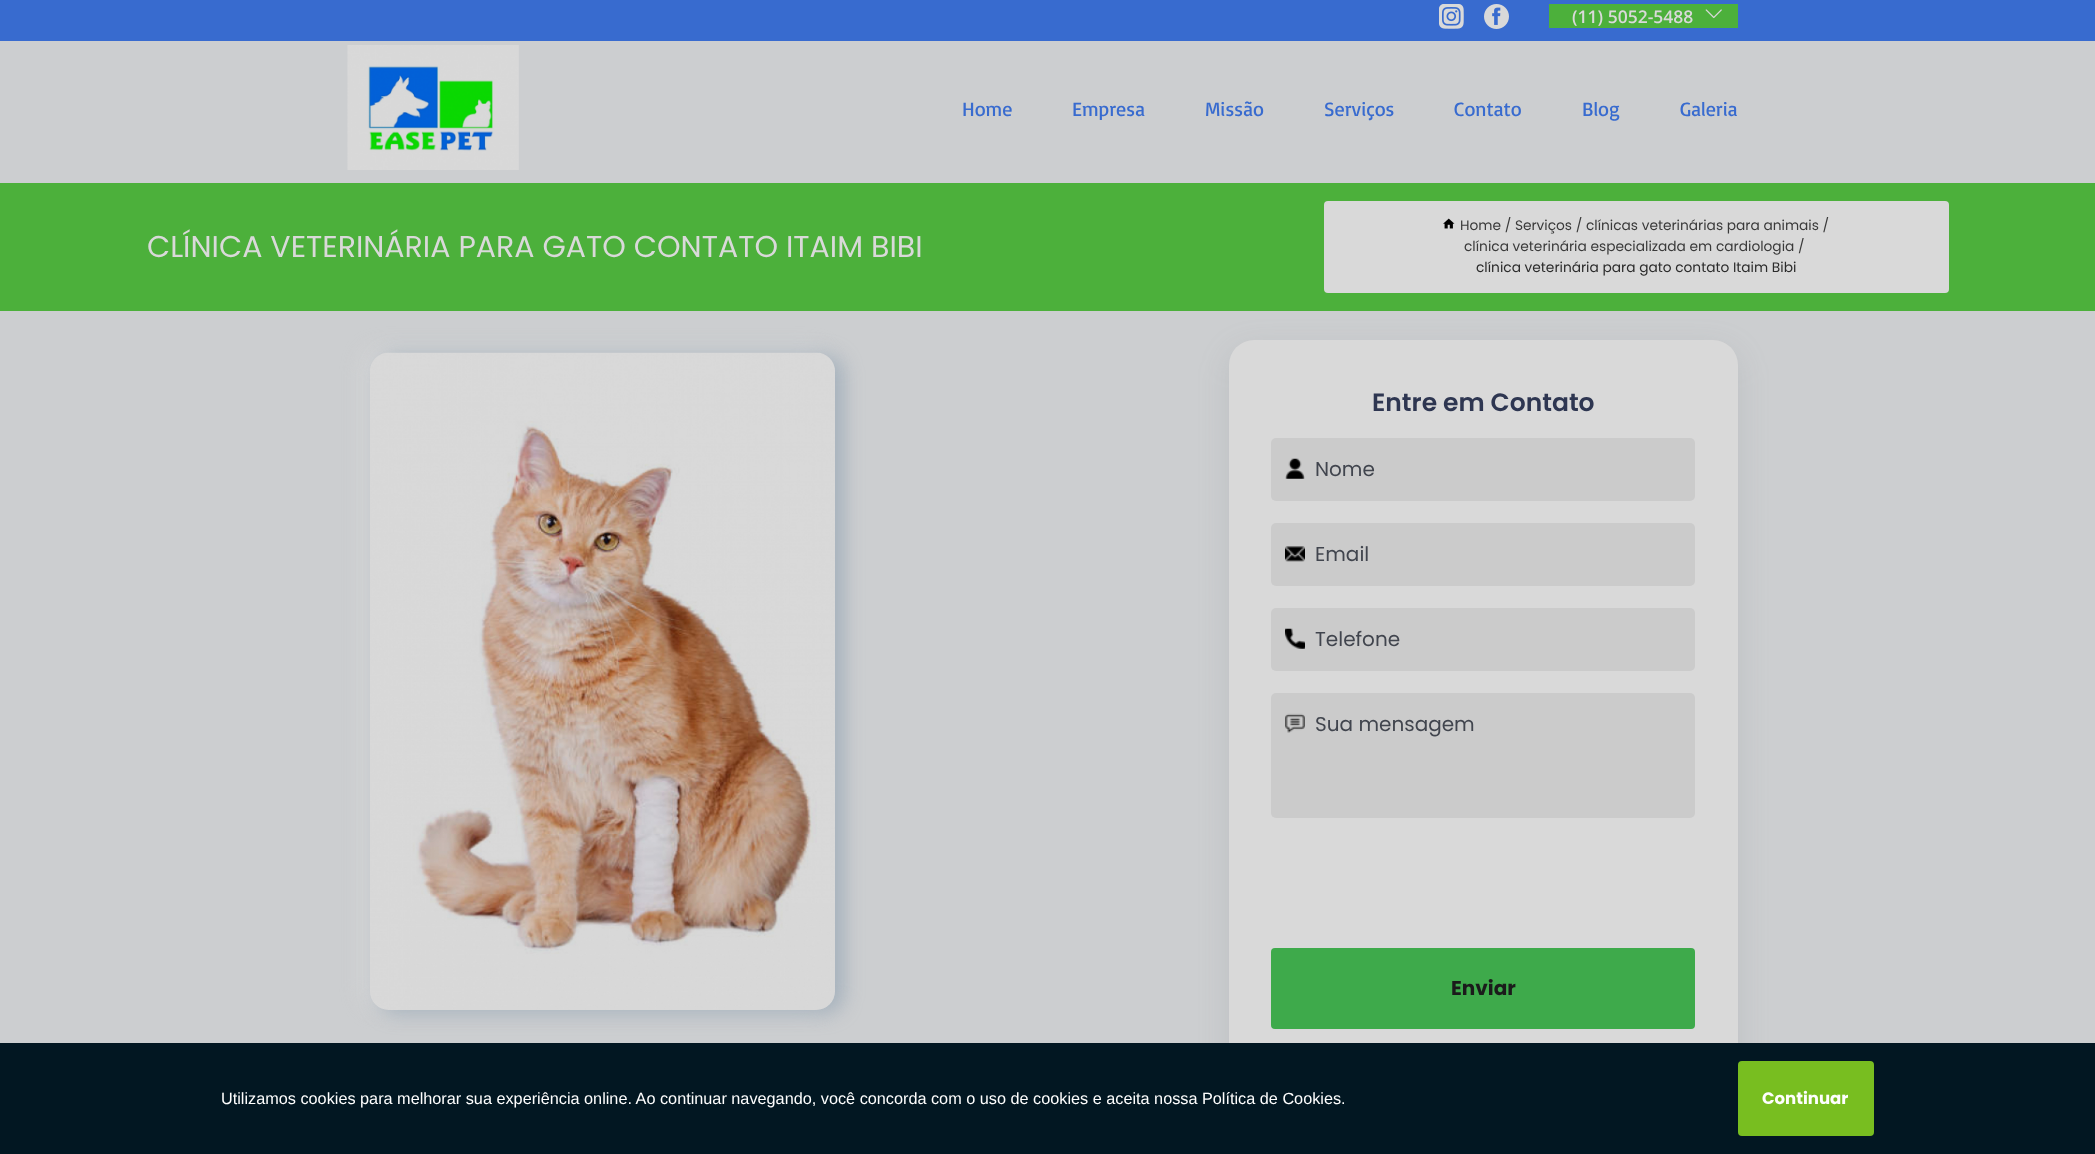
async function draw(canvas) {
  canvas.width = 2095
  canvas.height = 1154
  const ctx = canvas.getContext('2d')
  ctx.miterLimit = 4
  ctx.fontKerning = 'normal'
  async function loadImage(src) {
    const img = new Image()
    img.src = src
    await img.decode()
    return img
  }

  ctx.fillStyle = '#ccced0'
  ctx.fillRect(0, 0, 2095, 1154)
  ctx.save()
  ctx.beginPath()
  ctx.moveTo(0, 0)
  ctx.lineTo(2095, 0)
  ctx.lineTo(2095, 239)
  ctx.lineTo(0, 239)
  ctx.closePath()
  ctx.moveTo(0, 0)
  ctx.lineTo(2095, 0)
  ctx.lineTo(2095, 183)
  ctx.lineTo(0, 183)
  ctx.closePath()
  ctx.clip('evenodd')
  ctx.fillStyle = '#7f858c33'
  ctx.filter = 'blur(15px)'
  ctx.beginPath()
  ctx.rect(0, 10, 2095, 183)
  ctx.fill()
  ctx.filter = 'none'
  ctx.restore()
  ctx.fillStyle = '#386bcf'
  ctx.fillRect(0, 0, 2095, 41)
  ctx.drawImage(await loadImage('image0.png'), 1439, 4, 25, 25)
  ctx.drawImage(await loadImage('image1.png'), 1484, 4, 25, 25)
  ctx.fillStyle = '#4cb03b'
  ctx.fillRect(1549, 4, 189, 24)
  ctx.font = '600 17.5px Open Sans'
  ctx.fillStyle = '#d9d9d9'
  ctx.fillText('(11) 5052-5488', 1572, 23)
  ctx.drawImage(await loadImage('image2.png'), 1705, 9, 17, 10)
  ctx.drawImage(await loadImage('image3.png'), 347, 45, 172, 125)
  ctx.font = '20px Basic'
  ctx.fillStyle = '#386bcf'
  ctx.fillText('Home', 962, 116)
  ctx.fillText('Empresa', 1072, 116)
  ctx.fillText('Missão', 1205, 116)
  ctx.fillText('Serviços', 1324, 116)
  ctx.fillText('Contato', 1454, 116)
  ctx.fillText('Blog', 1582, 116)
  ctx.fillText('Galeria', 1680, 116)
  ctx.fillStyle = '#4cb03b'
  ctx.fillRect(0, 183, 2095, 128)
  ctx.font = '30px Poppins'
  ctx.fillStyle = '#d9d9d9'
  ctx.fillText('CLÍNICA VETERINÁRIA PARA GATO CONTATO ITAIM BIBI', 147, 257)
  ctx.beginPath()
  ctx.roundRect(1324, 201, 625, 92, 4)
  ctx.fill()
  ctx.drawImage(await loadImage('image4.png'), 1443, 218, 12, 11)
  ctx.font = '13.75px Poppins'
  ctx.fillStyle = '#3a3a3a'
  ctx.fillText('Home / Serviços / clínicas veterinárias para animais /', 1460, 230)
  ctx.fillText('clínica veterinária especializada em cardiologia /', 1464, 251)
  ctx.fillStyle = '#2b2b2b'
  ctx.fillText('clínica veterinária para gato contato Itaim Bibi', 1476, 272)
  ctx.fillStyle = '#d9d9d9cc'
  ctx.filter = 'blur(10px)'
  ctx.beginPath()
  ctx.roundRect(363, 350, 465, 658, 19)
  ctx.fill()
  ctx.filter = 'none'
  ctx.fillStyle = '#748ca27a'
  ctx.filter = 'blur(10px)'
  ctx.beginPath()
  ctx.roundRect(378, 355, 465, 658, 19)
  ctx.fill()
  ctx.filter = 'none'
  ctx.drawImage(await loadImage('image5.png'), 370, 352, 465, 658)
  ctx.fillStyle = '#7f858c33'
  ctx.filter = 'blur(15px)'
  ctx.beginPath()
  ctx.roundRect(1229, 350, 509, 733, 25)
  ctx.fill()
  ctx.filter = 'none'
  ctx.fillStyle = '#d9d9d9'
  ctx.beginPath()
  ctx.roundRect(1229, 340, 509, 733, 25)
  ctx.fill()
  ctx.font = '600 25px Poppins'
  ctx.fillStyle = '#2e3651'
  ctx.fillText('Entre em Contato', 1372, 411)
  ctx.fillStyle = '#cbcbcb'
  ctx.beginPath()
  ctx.roundRect(1271, 438, 424, 63, 5)
  ctx.fill()
  ctx.drawImage(await loadImage('image6.png'), 1285, 458, 20, 21)
  ctx.font = '20px Poppins'
  ctx.fillStyle = '#41454e'
  ctx.fillText('Nome', 1315, 476)
  ctx.fillStyle = '#cbcbcb'
  ctx.beginPath()
  ctx.roundRect(1271, 523, 424, 63, 5)
  ctx.fill()
  ctx.drawImage(await loadImage('image7.png'), 1285, 546, 20, 16)
  ctx.fillStyle = '#41454e'
  ctx.fillText('Email', 1315, 561)
  ctx.fillStyle = '#cbcbcb'
  ctx.beginPath()
  ctx.roundRect(1271, 608, 424, 63, 5)
  ctx.fill()
  ctx.drawImage(await loadImage('image8.png'), 1285, 628, 20, 21)
  ctx.fillStyle = '#41454e'
  ctx.fillText('Telefone', 1315, 646)
  ctx.fillStyle = '#cbcbcb'
  ctx.beginPath()
  ctx.roundRect(1271, 693, 424, 125, 5)
  ctx.fill()
  ctx.drawImage(await loadImage('image9.png'), 1285, 713, 20, 20)
  ctx.fillStyle = '#41454e'
  ctx.fillText('Sua mensagem', 1315, 731)
  ctx.fillStyle = '#3eaa4b'
  ctx.beginPath()
  ctx.roundRect(1271, 948, 424, 81, 4)
  ctx.fill()
  ctx.font = 'bold 20px Poppins'
  ctx.fillStyle = '#1b1b1b'
  ctx.fillText('Enviar', 1451, 995)
  ctx.fillStyle = '#021722'
  ctx.fillRect(0, 1043, 2095, 111)
  ctx.font = '16.25px Liberation Sans'
  ctx.fillStyle = '#fefefe'
  ctx.fillText('Utilizamos cookies para melhorar sua experiência online. Ao continuar navegando, você concorda com o uso de cookies e aceita nossa Política de Cookies.', 221, 1104)
  ctx.fillStyle = '#78be20'
  ctx.beginPath()
  ctx.roundRect(1738, 1061, 136, 75, 4)
  ctx.fill()
  ctx.font = 'bold 16.5px Poppins'
  ctx.fillStyle = '#fefefe'
  ctx.fillText('Continuar', 1762, 1104)
}

draw(document.querySelector('canvas'))
